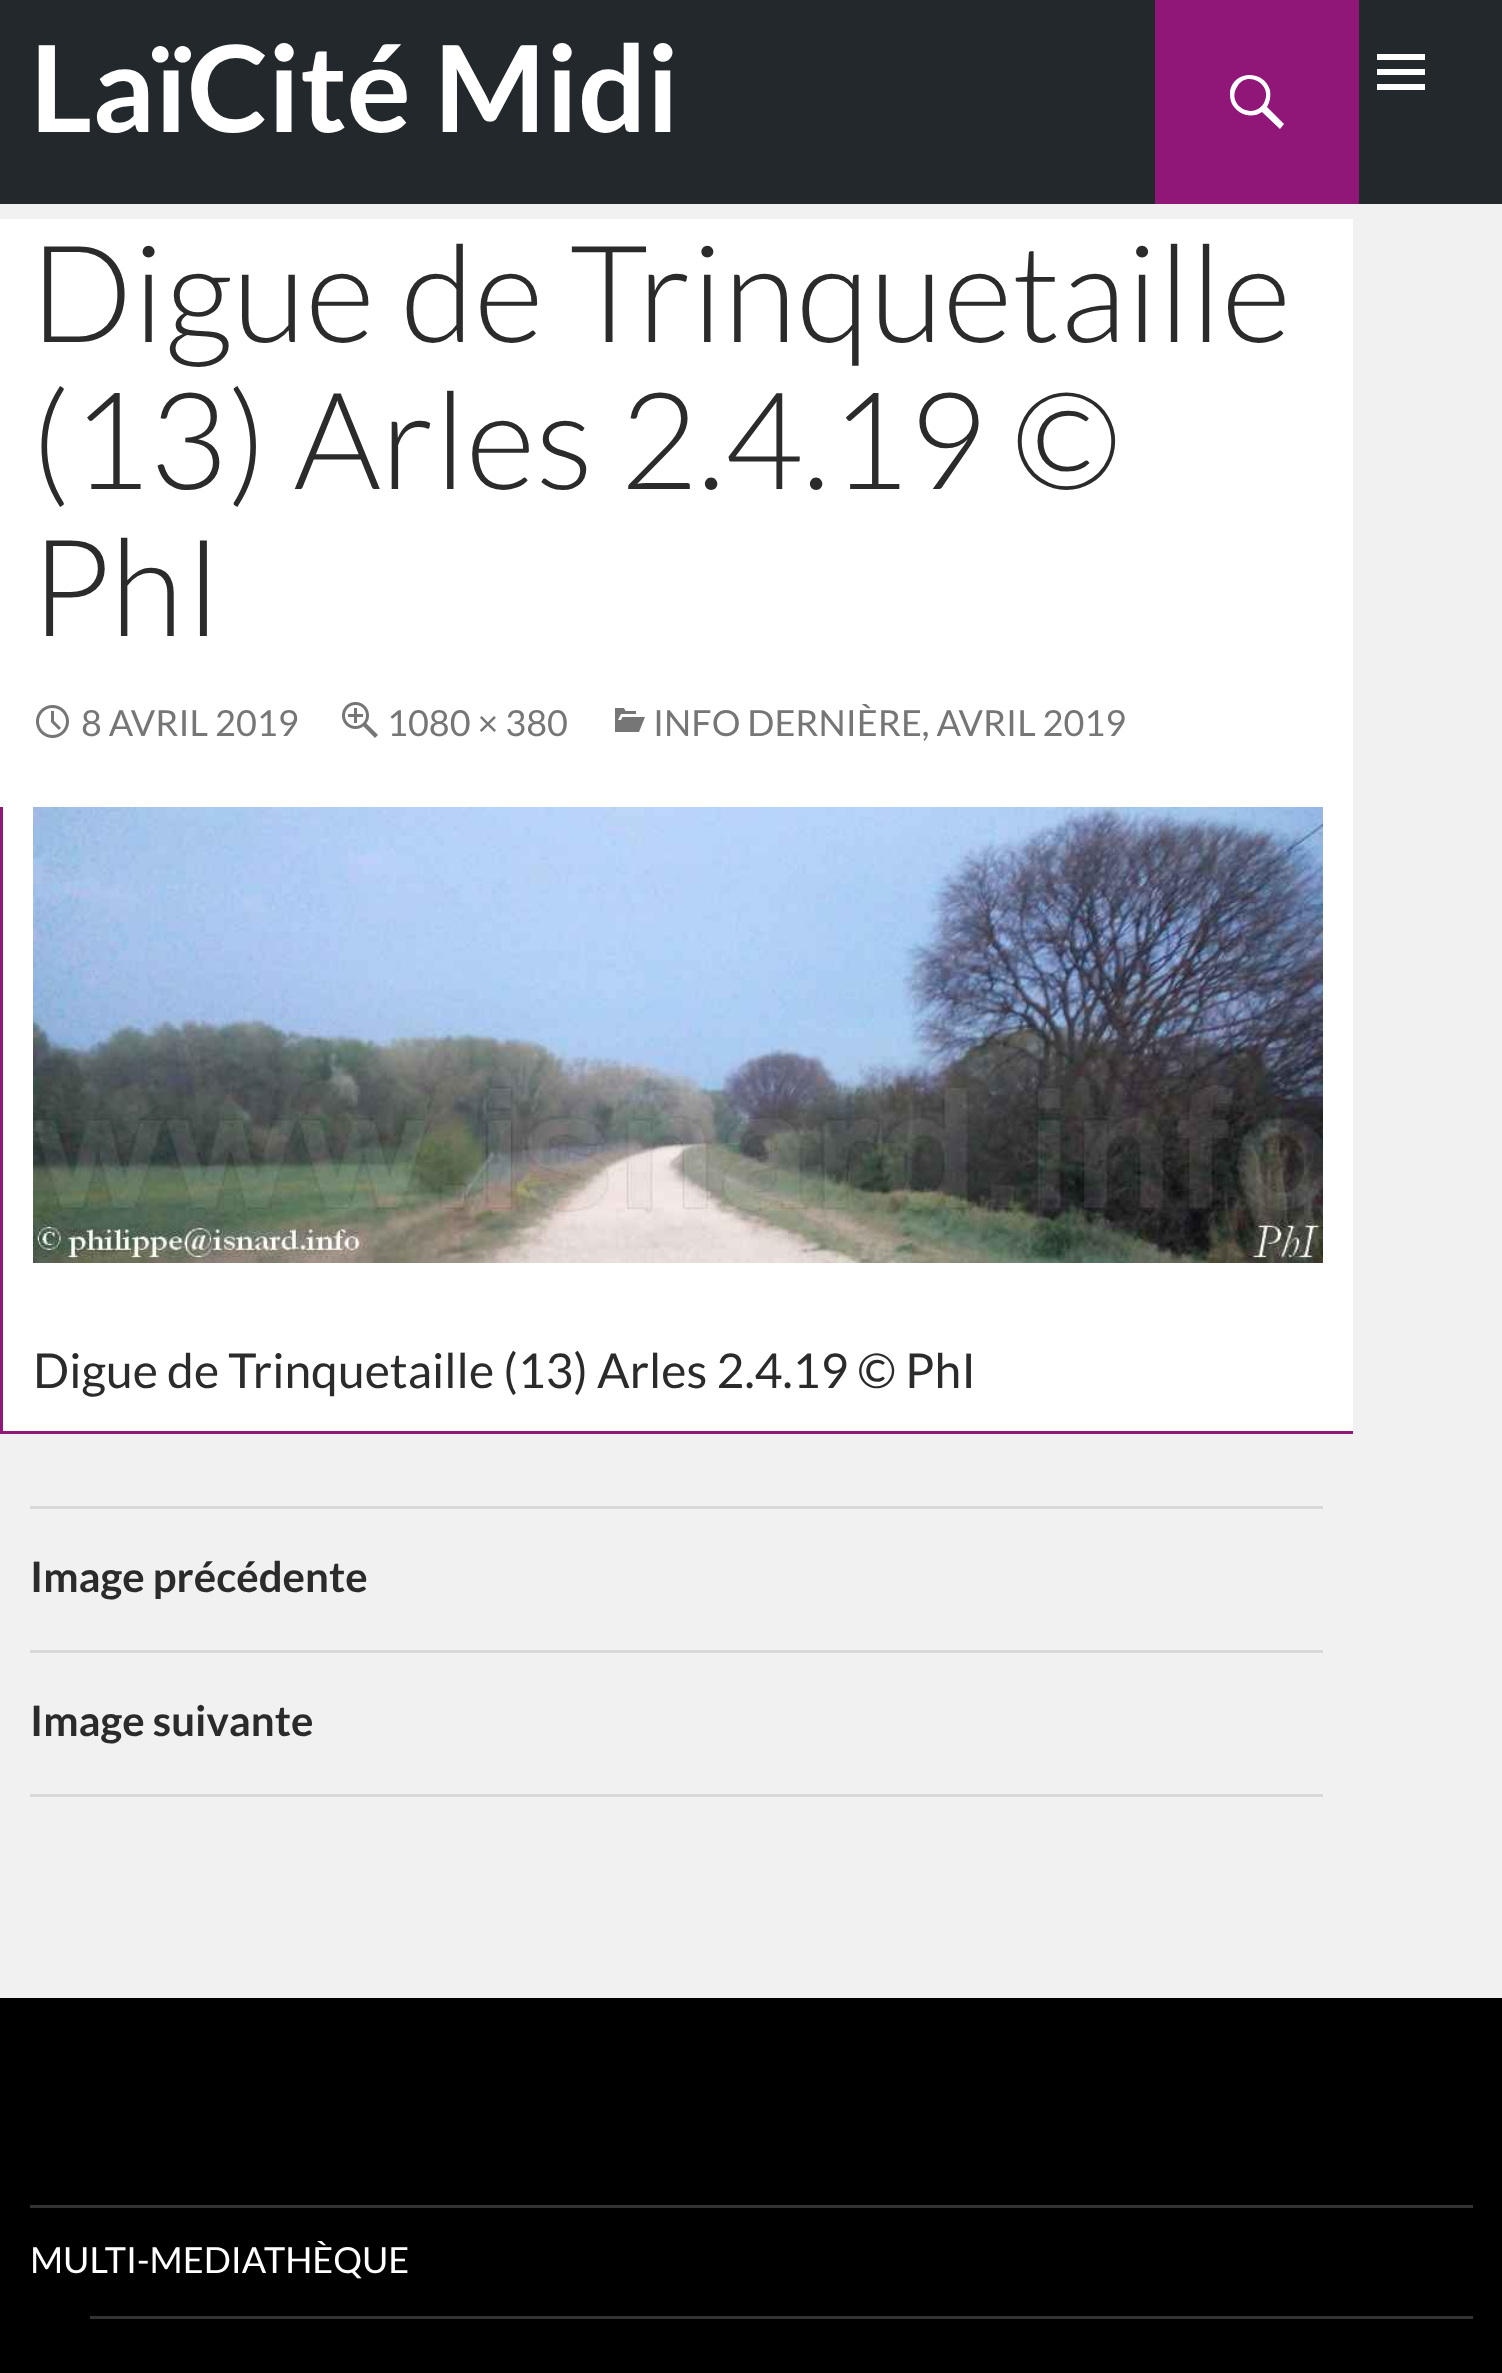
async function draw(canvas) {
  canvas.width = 1502
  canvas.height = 2373
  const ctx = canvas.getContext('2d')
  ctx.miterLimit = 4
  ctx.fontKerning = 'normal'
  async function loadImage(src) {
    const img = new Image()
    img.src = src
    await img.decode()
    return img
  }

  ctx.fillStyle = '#f1f1f1'
  ctx.fillRect(0, 0, 1502, 2373)
  ctx.fillStyle = '#23282d'
  ctx.fillRect(0, 0, 1502, 204)
  ctx.font = 'bold 120px Lato'
  ctx.fillStyle = '#fff'
  ctx.fillText('LaïCité Midi', 30, 132)
  ctx.fillStyle = '#901678'
  ctx.fillRect(1155, 0, 204, 204)
  ctx.fillStyle = '#fff'
  ctx.beginPath()
  ctx.moveTo(1284, 124)
  ctx.lineTo(1280, 129)
  ctx.lineTo(1262, 112)
  ctx.bezierCurveTo(1252, 119, 1238, 115, 1232, 104)
  ctx.bezierCurveTo(1230, 100, 1230, 96, 1230, 91)
  ctx.bezierCurveTo(1234, 70, 1264, 70, 1270, 90)
  ctx.bezierCurveTo(1271, 96, 1270, 102, 1267, 107)
  ctx.closePath()
  ctx.moveTo(1237, 87)
  ctx.bezierCurveTo(1226, 105, 1253, 121, 1264, 103)
  ctx.bezierCurveTo(1274, 85, 1247, 69, 1237, 87)
  ctx.closePath()
  ctx.fill()
  ctx.beginPath()
  ctx.moveTo(1377, 90)
  ctx.lineTo(1377, 84)
  ctx.lineTo(1425, 84)
  ctx.lineTo(1425, 90)
  ctx.closePath()
  ctx.moveTo(1377, 54)
  ctx.lineTo(1425, 54)
  ctx.lineTo(1425, 60)
  ctx.lineTo(1377, 60)
  ctx.closePath()
  ctx.moveTo(1377, 75)
  ctx.lineTo(1377, 69)
  ctx.lineTo(1425, 69)
  ctx.lineTo(1425, 75)
  ctx.closePath()
  ctx.fill()
  ctx.fillRect(0, 219, 1353, 588)
  ctx.font = '300 135px Lato'
  ctx.fillStyle = '#2b2b2b'
  ctx.fillText('Digue de Trinquetaille', 30, 342)
  ctx.fillText('(13) Arles 2.4.19 ©', 30, 489)
  ctx.fillText('PhI', 30, 636)
  ctx.drawImage(await loadImage('image0.png'), 36, 705, 33, 33)
  ctx.font = '36px Lato'
  ctx.fillStyle = '#767676'
  ctx.fillText('8 AVRIL 2019', 81, 736)
  ctx.drawImage(await loadImage('image1.png'), 342, 702, 36, 36)
  ctx.fillText('1080 × 380', 387, 736)
  ctx.drawImage(await loadImage('image2.png'), 615, 708, 30, 24)
  ctx.fillText('INFO DERNIÈRE, AVRIL 2019', 653, 736)
  ctx.fillStyle = '#fff'
  ctx.fillRect(3, 807, 1350, 624)
  ctx.fillStyle = '#901678'
  ctx.fillRect(0, 1431, 1353, 3)
  ctx.fillRect(0, 807, 3, 627)
  ctx.drawImage(await loadImage('image3.png'), 33, 807, 1290, 456)
  ctx.font = '48px Lato'
  ctx.fillStyle = '#2b2b2b'
  ctx.fillText('Digue de Trinquetaille (13) Arles 2.4.19 © PhI', 33, 1388)
  ctx.fillStyle = '#d9d9d9'
  ctx.fillRect(30, 1506, 1293, 3)
  ctx.fillRect(30, 1650, 1293, 3)
  ctx.font = 'bold 42px Lato'
  ctx.fillStyle = '#2b2b2b'
  ctx.fillText('Image précédente', 30, 1592)
  ctx.fillStyle = '#d9d9d9'
  ctx.fillRect(30, 1794, 1293, 3)
  ctx.fillStyle = '#2b2b2b'
  ctx.fillText('Image suivante', 30, 1736)
  ctx.fillStyle = '#000'
  ctx.fillRect(0, 1998, 1502, 375)
  ctx.fillStyle = '#333'
  ctx.fillRect(30, 2205, 1443, 3)
  ctx.font = '36px Lato'
  ctx.fillStyle = '#fff'
  ctx.fillText('MULTI-MEDIATHÈQUE', 30, 2273)
  ctx.fillStyle = '#333'
  ctx.fillRect(90, 2316, 1383, 3)
}

draw(document.querySelector('canvas'))
